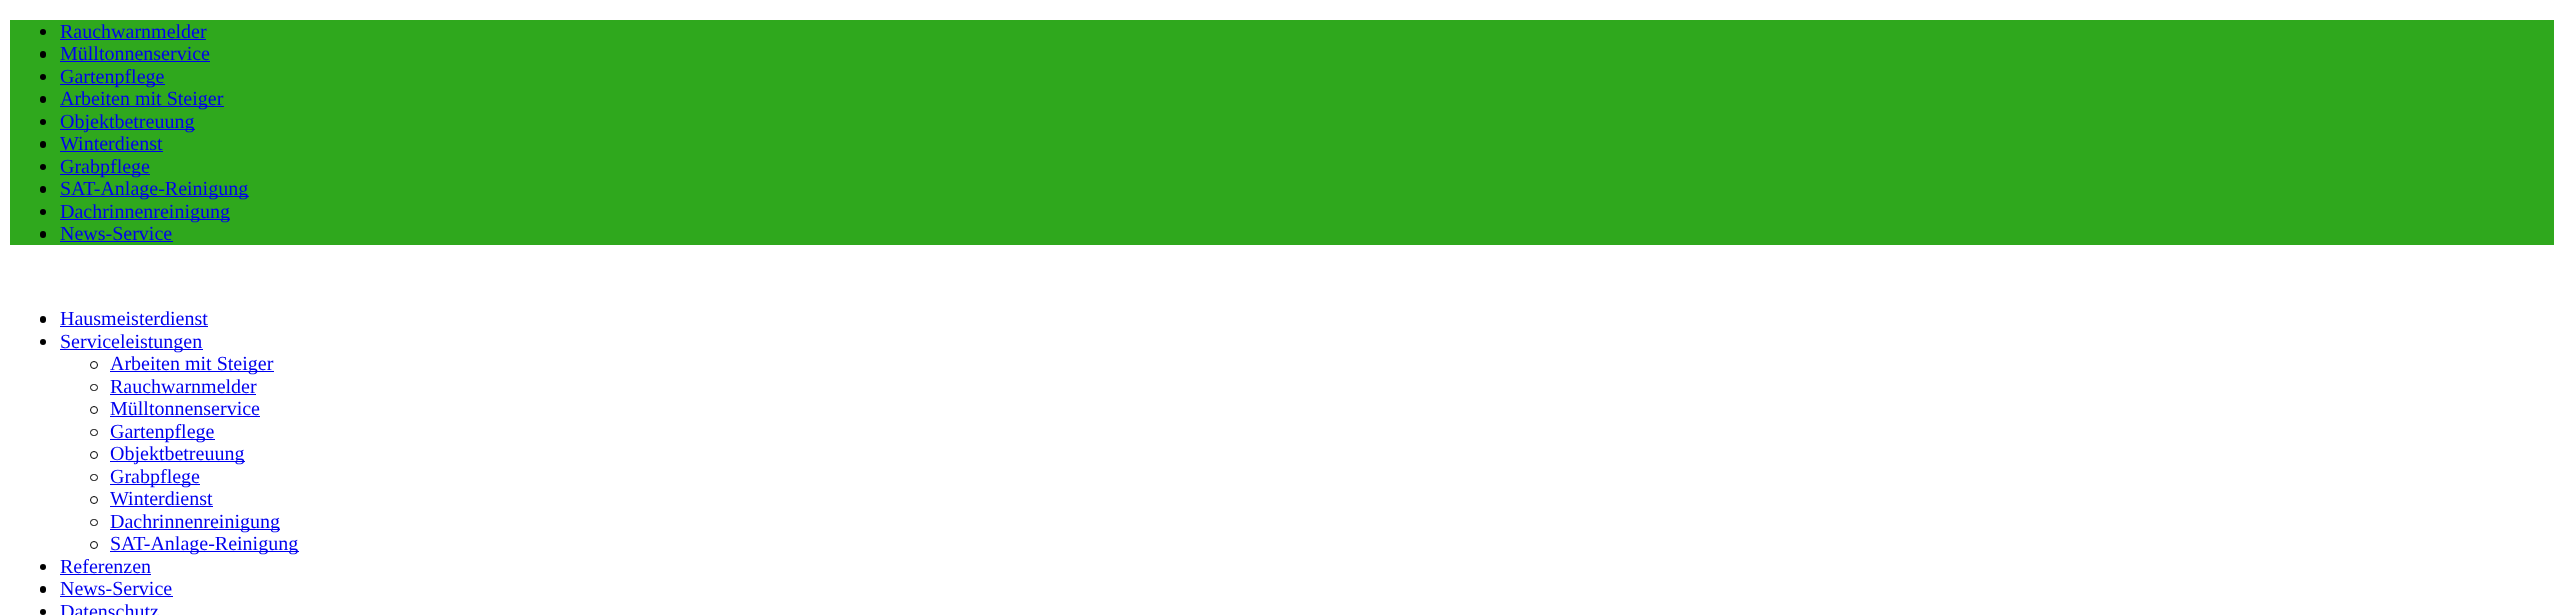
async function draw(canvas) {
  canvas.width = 2563
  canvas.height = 615
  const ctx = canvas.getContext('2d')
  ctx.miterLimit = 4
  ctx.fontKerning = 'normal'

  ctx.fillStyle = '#fff'
  ctx.fillRect(0, 0, 2563, 615)
  ctx.fillStyle = '#2fa81d'
  ctx.fillRect(10, 20, 2544, 225)
  ctx.fillStyle = '#000'
  ctx.beginPath()
  ctx.arc(43, 32, 3, 0, 2 * Math.PI)
  ctx.fill()
  ctx.font = '20px Liberation Serif'
  ctx.fillStyle = '#00e'
  ctx.fillText('Rauchwarnmelder', 60, 38)
  ctx.fillRect(60, 39, 146, 1)
  ctx.fillStyle = '#000'
  ctx.beginPath()
  ctx.roundRect(40, 51, 6, 7, 3)
  ctx.fill()
  ctx.fillStyle = '#00e'
  ctx.fillText('Mülltonnenservice', 60, 60)
  ctx.fillRect(60, 61, 150, 1)
  ctx.fillStyle = '#000'
  ctx.beginPath()
  ctx.arc(43, 77, 3, 0, 2 * Math.PI)
  ctx.fill()
  ctx.fillStyle = '#00e'
  ctx.fillRect(60, 84, 105, 1)
  ctx.fillText('Gartenpflege', 60, 83)
  ctx.fillStyle = '#000'
  ctx.beginPath()
  ctx.roundRect(40, 96, 6, 7, 3)
  ctx.fill()
  ctx.fillStyle = '#00e'
  ctx.fillRect(60, 106, 164, 1)
  ctx.fillText('Arbeiten mit Steiger', 60, 105)
  ctx.fillStyle = '#000'
  ctx.beginPath()
  ctx.arc(43, 122, 3, 0, 2 * Math.PI)
  ctx.fill()
  ctx.fillStyle = '#00e'
  ctx.fillRect(60, 129, 135, 1)
  ctx.fillText('Objektbetreuung', 60, 128)
  ctx.fillStyle = '#000'
  ctx.beginPath()
  ctx.roundRect(40, 141, 6, 7, 3)
  ctx.fill()
  ctx.fillStyle = '#00e'
  ctx.fillText('Winterdienst', 60, 150)
  ctx.fillRect(60, 151, 103, 1)
  ctx.fillStyle = '#000'
  ctx.beginPath()
  ctx.arc(43, 167, 3, 0, 2 * Math.PI)
  ctx.fill()
  ctx.fillStyle = '#00e'
  ctx.fillRect(60, 174, 90, 1)
  ctx.fillText('Grabpflege', 60, 173)
  ctx.fillStyle = '#000'
  ctx.beginPath()
  ctx.roundRect(40, 186, 6, 7, 3)
  ctx.fill()
  ctx.fillStyle = '#00e'
  ctx.fillRect(60, 196, 189, 1)
  ctx.fillText('SAT-Anlage-Reinigung', 60, 195)
  ctx.fillStyle = '#000'
  ctx.beginPath()
  ctx.arc(43, 212, 3, 0, 2 * Math.PI)
  ctx.fill()
  ctx.fillStyle = '#00e'
  ctx.fillRect(60, 219, 170, 1)
  ctx.fillText('Dachrinnenreinigung', 60, 218)
  ctx.fillStyle = '#000'
  ctx.beginPath()
  ctx.roundRect(40, 231, 6, 7, 3)
  ctx.fill()
  ctx.fillStyle = '#00e'
  ctx.fillText('News-Service', 60, 240)
  ctx.fillRect(60, 241, 113, 1)
  ctx.fillStyle = '#000'
  ctx.beginPath()
  ctx.roundRect(40, 316, 6, 7, 3)
  ctx.fill()
  ctx.fillStyle = '#00e'
  ctx.fillText('Hausmeisterdienst', 60, 325)
  ctx.fillRect(60, 326, 148, 1)
  ctx.fillStyle = '#000'
  ctx.beginPath()
  ctx.arc(43, 342, 3, 0, 2 * Math.PI)
  ctx.fill()
  ctx.fillStyle = '#00e'
  ctx.fillRect(60, 349, 143, 1)
  ctx.fillText('Serviceleistungen', 60, 348)
  ctx.beginPath()
  ctx.arc(94, 365, 3.5, 0, 2 * Math.PI)
  ctx.strokeStyle = '#000'
  ctx.stroke()
  ctx.fillRect(110, 371, 164, 1)
  ctx.fillText('Arbeiten mit Steiger', 110, 370)
  ctx.beginPath()
  ctx.roundRect(90.5, 384.5, 7, 6, 3)
  ctx.stroke()
  ctx.fillText('Rauchwarnmelder', 110, 393)
  ctx.fillRect(110, 394, 146, 1)
  ctx.beginPath()
  ctx.arc(94, 410, 3.5, 0, 2 * Math.PI)
  ctx.stroke()
  ctx.fillText('Mülltonnenservice', 110, 415)
  ctx.fillRect(110, 416, 150, 1)
  ctx.beginPath()
  ctx.roundRect(90.5, 429.5, 7, 6, 3)
  ctx.stroke()
  ctx.fillRect(110, 439, 105, 1)
  ctx.fillText('Gartenpflege', 110, 438)
  ctx.beginPath()
  ctx.arc(94, 455, 3.5, 0, 2 * Math.PI)
  ctx.stroke()
  ctx.fillRect(110, 461, 135, 1)
  ctx.fillText('Objektbetreuung', 110, 460)
  ctx.beginPath()
  ctx.roundRect(90.5, 474.5, 7, 6, 3)
  ctx.stroke()
  ctx.fillRect(110, 484, 90, 1)
  ctx.fillText('Grabpflege', 110, 483)
  ctx.beginPath()
  ctx.arc(94, 500, 3.5, 0, 2 * Math.PI)
  ctx.stroke()
  ctx.fillText('Winterdienst', 110, 505)
  ctx.fillRect(110, 506, 103, 1)
  ctx.beginPath()
  ctx.roundRect(90.5, 519.5, 7, 6, 3)
  ctx.stroke()
  ctx.fillRect(110, 529, 170, 1)
  ctx.fillText('Dachrinnenreinigung', 110, 528)
  ctx.beginPath()
  ctx.arc(94, 545, 3.5, 0, 2 * Math.PI)
  ctx.stroke()
  ctx.fillRect(110, 551, 189, 1)
  ctx.fillText('SAT-Anlage-Reinigung', 110, 550)
  ctx.fillStyle = '#000'
  ctx.beginPath()
  ctx.arc(43, 567, 3, 0, 2 * Math.PI)
  ctx.fill()
  ctx.fillStyle = '#00e'
  ctx.fillText('Referenzen', 60, 573)
  ctx.fillRect(60, 574, 91, 1)
  ctx.fillStyle = '#000'
  ctx.beginPath()
  ctx.roundRect(40, 586, 6, 7, 3)
  ctx.fill()
  ctx.fillStyle = '#00e'
  ctx.fillText('News-Service', 60, 595)
  ctx.fillRect(60, 596, 113, 1)
  ctx.fillStyle = '#000'
  ctx.beginPath()
  ctx.arc(43, 612, 3, 0, 2 * Math.PI)
  ctx.fill()
  ctx.fillStyle = '#00e'
  ctx.fillText('Datenschutz', 60, 618)
}

draw(document.querySelector('canvas'))
